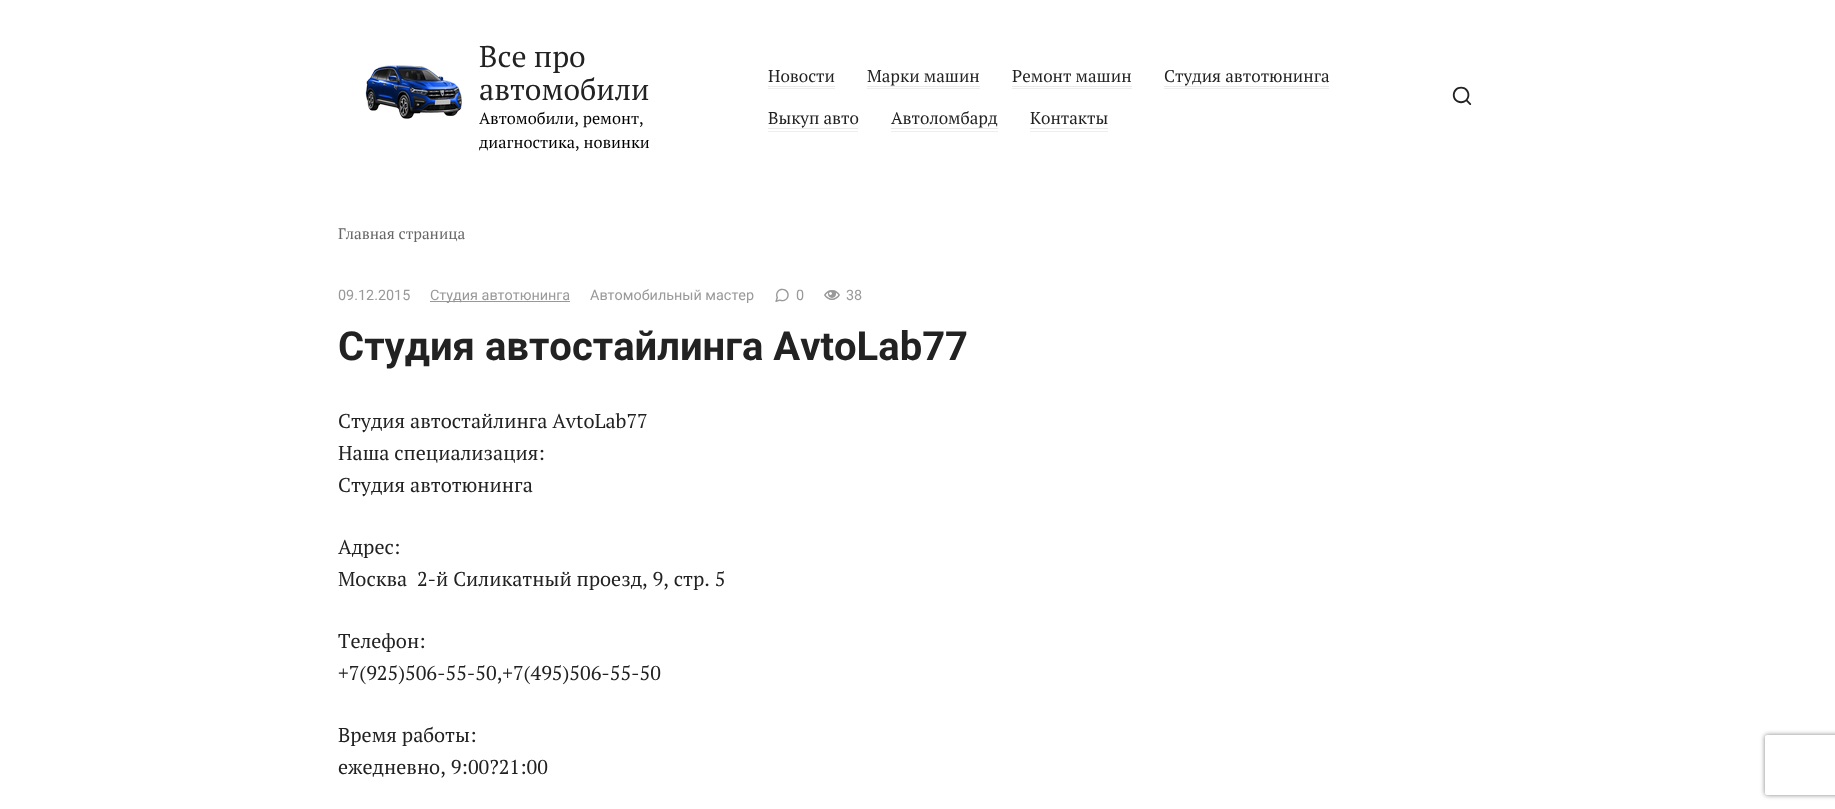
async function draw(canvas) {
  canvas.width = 1835
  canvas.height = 809
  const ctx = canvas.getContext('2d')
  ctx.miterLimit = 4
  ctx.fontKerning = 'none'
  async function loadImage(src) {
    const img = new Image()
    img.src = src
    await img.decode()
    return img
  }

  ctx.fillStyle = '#fff'
  ctx.fillRect(0, 0, 1835, 809)
  ctx.drawImage(await loadImage('image0.png'), 365, 65, 97, 54)
  ctx.font = '30px PT Serif'
  ctx.fillStyle = '#222'
  ctx.fillText('Все про', 479, 67)
  ctx.fillText('автомобили', 479, 100)
  ctx.font = '16.25px PT Serif'
  ctx.fillStyle = '#000'
  ctx.fillText('Автомобили, ремонт,', 479, 124)
  ctx.fillText('диагностика, новинки', 479, 148)
  ctx.fillStyle = '#eee'
  ctx.fillRect(768, 88, 67, 1)
  ctx.font = '17px PT Serif'
  ctx.fillStyle = '#222'
  ctx.fillText('Новости', 768, 82)
  ctx.fillStyle = '#e9e9e9'
  ctx.fillRect(768, 86, 67, 1)
  ctx.fillStyle = '#eee'
  ctx.fillRect(867, 88, 113, 1)
  ctx.fillStyle = '#222'
  ctx.fillText('Марки машин', 867, 82)
  ctx.fillStyle = '#e9e9e9'
  ctx.fillRect(867, 86, 113, 1)
  ctx.fillStyle = '#eee'
  ctx.fillRect(1012, 88, 120, 1)
  ctx.fillStyle = '#222'
  ctx.fillText('Ремонт машин', 1012, 82)
  ctx.fillStyle = '#e9e9e9'
  ctx.fillRect(1012, 86, 120, 1)
  ctx.fillStyle = '#eee'
  ctx.fillRect(1164, 88, 165, 1)
  ctx.fillStyle = '#222'
  ctx.fillText('Студия автотюнинга', 1164, 82)
  ctx.fillStyle = '#e9e9e9'
  ctx.fillRect(1164, 86, 165, 1)
  ctx.fillStyle = '#eee'
  ctx.fillRect(768, 131, 90, 1)
  ctx.fillStyle = '#222'
  ctx.fillText('Выкуп авто', 768, 124)
  ctx.fillStyle = '#e9e9e9'
  ctx.fillRect(768, 128, 90, 1)
  ctx.fillStyle = '#eee'
  ctx.fillRect(891, 131, 107, 1)
  ctx.fillStyle = '#222'
  ctx.fillText('Автоломбард', 891, 124)
  ctx.fillStyle = '#e9e9e9'
  ctx.fillRect(891, 128, 107, 1)
  ctx.fillStyle = '#eee'
  ctx.fillRect(1030, 131, 78, 1)
  ctx.fillStyle = '#222'
  ctx.fillText('Контакты', 1030, 124)
  ctx.fillStyle = '#e9e9e9'
  ctx.fillRect(1030, 128, 78, 1)
  ctx.font = '22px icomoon'
  ctx.fillStyle = '#222'
  ctx.fillText('🔍', 1451, 105)
  ctx.font = '15.25px PT Serif'
  ctx.fillStyle = '#666'
  ctx.fillText('Главная страница', 338, 239)
  ctx.font = '14.4px Roboto'
  ctx.fillStyle = '#999'
  ctx.fillText('09.12.2015', 338, 300)
  ctx.fillRect(430, 301, 140, 1)
  ctx.fillText('Студия автотюнинга', 430, 300)
  ctx.fillText('Автомобильный мастер', 590, 300)
  ctx.font = '16px icomoon'
  ctx.fillText('💭', 774, 302)
  ctx.font = '14.4px Roboto'
  ctx.fillText('0', 796, 300)
  ctx.font = '16px icomoon'
  ctx.fillText('👁', 824, 302)
  ctx.font = '14.4px Roboto'
  ctx.fillText('38', 846, 300)
  ctx.font = 'bold 40px Roboto'
  ctx.fillStyle = '#222'
  ctx.fillText('Студия автостайлинга АvtoLab77', 338, 360)
  ctx.font = '20px PT Serif'
  ctx.fillText('Студия автостайлинга АvtoLab77', 338, 428)
  ctx.fillText('Наша специализация:', 338, 460)
  ctx.fillText('Студия автотюнинга', 338, 492)
  ctx.fillText('Адрес:', 338, 554)
  ctx.fillText('Москва  2-й Силикатный проезд, 9, стр. 5', 338, 586)
  ctx.fillText('Телефон:', 338, 648)
  ctx.fillText('+7(925)506-55-50,+7(495)506-55-50', 338, 680)
  ctx.fillText('Время работы:', 338, 742)
  ctx.fillText('ежедневно, 9:00?21:00', 338, 774)
  ctx.save()
  ctx.beginPath()
  ctx.moveTo(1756, 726)
  ctx.lineTo(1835, 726)
  ctx.lineTo(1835, 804)
  ctx.lineTo(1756, 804)
  ctx.closePath()
  ctx.moveTo(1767, 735)
  ctx.lineTo(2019, 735)
  ctx.bezierCurveTo(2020, 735, 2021, 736, 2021, 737)
  ctx.lineTo(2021, 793)
  ctx.bezierCurveTo(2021, 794, 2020, 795, 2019, 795)
  ctx.lineTo(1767, 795)
  ctx.bezierCurveTo(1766, 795, 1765, 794, 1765, 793)
  ctx.lineTo(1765, 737)
  ctx.bezierCurveTo(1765, 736, 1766, 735, 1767, 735)
  ctx.closePath()
  ctx.clip('evenodd')
  ctx.fillStyle = '#808080'
  ctx.filter = 'blur(2.5px)'
  ctx.beginPath()
  ctx.roundRect(1765, 735, 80, 60, 2)
  ctx.fill()
  ctx.filter = 'none'
  ctx.restore()
}

draw(document.querySelector('canvas'))
